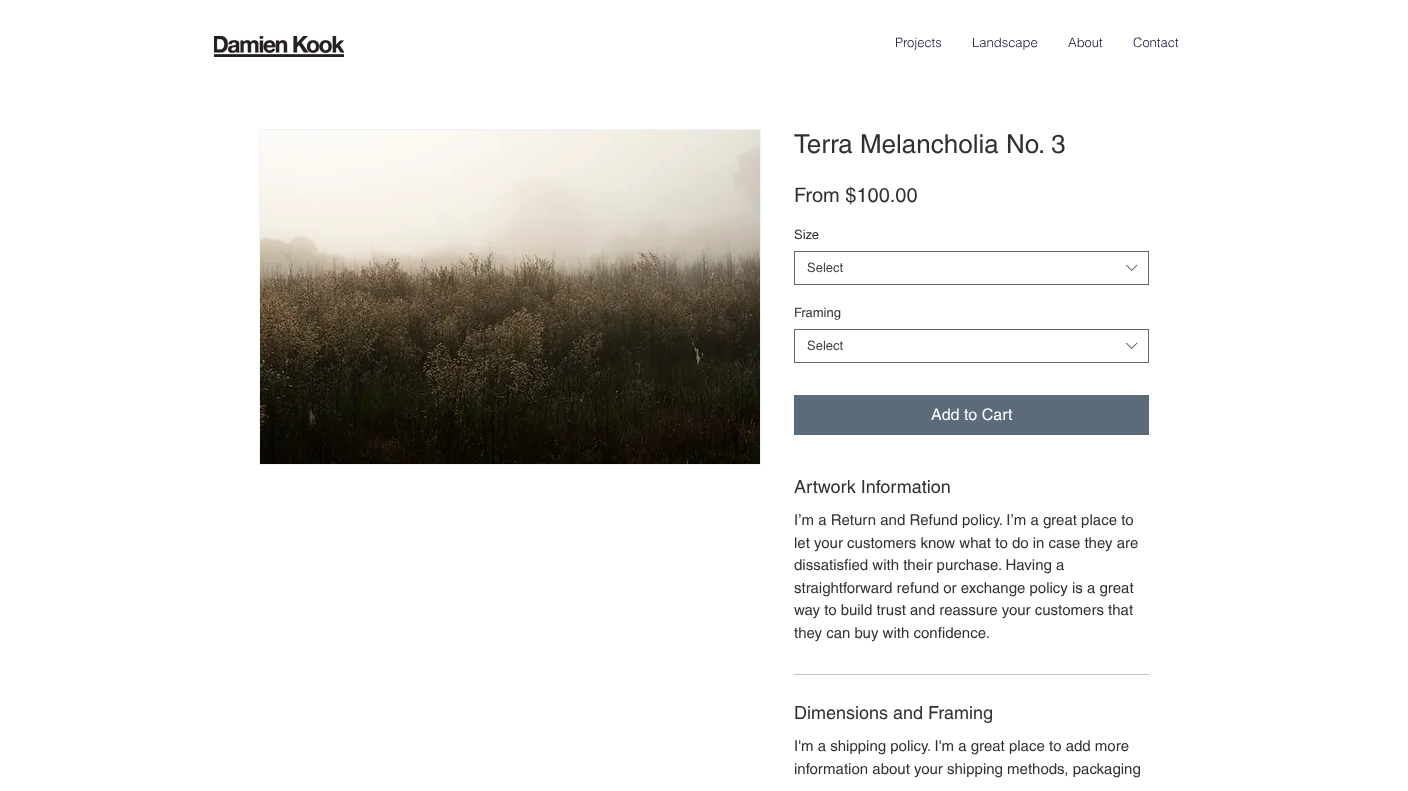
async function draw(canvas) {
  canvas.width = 1408
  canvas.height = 791
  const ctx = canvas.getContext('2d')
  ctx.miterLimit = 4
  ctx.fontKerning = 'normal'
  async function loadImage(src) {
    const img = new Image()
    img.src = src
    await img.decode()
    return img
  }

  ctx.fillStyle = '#fff'
  ctx.fillRect(0, 0, 1408, 791)
  ctx.drawImage(await loadImage('image0.png'), 214, 36, 130, 21)
  ctx.font = '300 13px helvetica'
  ctx.fillStyle = '#101231'
  ctx.fillText('Projects', 895, 47)
  ctx.fillText('Landscape', 972, 47)
  ctx.fillText('About', 1068, 47)
  ctx.fillText('Contact', 1133, 47)
  ctx.strokeStyle = '#f0f3f6'
  ctx.strokeRect(259.5, 129.5, 501, 335)
  ctx.drawImage(await loadImage('image1.png'), 260, 130, 500, 334)
  ctx.font = '26px helvetica'
  ctx.fillStyle = '#303131'
  ctx.fillText('Terra Melancholia No. 3', 794, 153)
  ctx.font = '20px helvetica'
  ctx.fillText('From $100.00', 794, 202)
  ctx.font = '13px helvetica'
  ctx.fillText('Size', 794, 239)
  ctx.strokeStyle = '#666'
  ctx.strokeRect(794.5, 251.5, 354, 33)
  ctx.fillStyle = '#444'
  ctx.fillText('Select', 807, 272)
  ctx.drawImage(await loadImage('image2.png'), 1126, 264, 12, 7)
  ctx.fillStyle = '#303131'
  ctx.fillText('Framing', 794, 317)
  ctx.strokeRect(794.5, 329.5, 354, 33)
  ctx.fillStyle = '#444'
  ctx.fillText('Select', 807, 350)
  ctx.drawImage(await loadImage('image2.png'), 1126, 342, 12, 7)
  ctx.fillStyle = '#5c6b7a'
  ctx.fillRect(794, 395, 355, 40)
  ctx.font = '16px helvetica'
  ctx.fillStyle = '#fff'
  ctx.fillText('Add to Cart', 931, 420)
  ctx.fillStyle = '#c2c2c2'
  ctx.fillRect(794, 674, 355, 1)
  ctx.font = '18px helvetica'
  ctx.fillStyle = '#303131'
  ctx.fillText('Artwork Information', 794, 493)
  ctx.font = '15px helvetica'
  ctx.fillText('I’m a Return and Refund policy. I’m a great place to', 794, 525)
  ctx.fillText('let your customers know what to do in case they are', 794, 548)
  ctx.fillText('dissatisfied with their purchase. Having a', 794, 570)
  ctx.fillText('straightforward refund or exchange policy is a great', 794, 593)
  ctx.fillText('way to build trust and reassure your customers that', 794, 615)
  ctx.fillText('they can buy with confidence.', 794, 638)
  ctx.font = '18px helvetica'
  ctx.fillText('Dimensions and Framing', 794, 719)
  ctx.font = '15px helvetica'
  ctx.fillText('I\'m a shipping policy. I\'m a great place to add more', 794, 751)
  ctx.fillText('information about your shipping methods, packaging', 794, 774)
}

draw(document.querySelector('canvas'))
